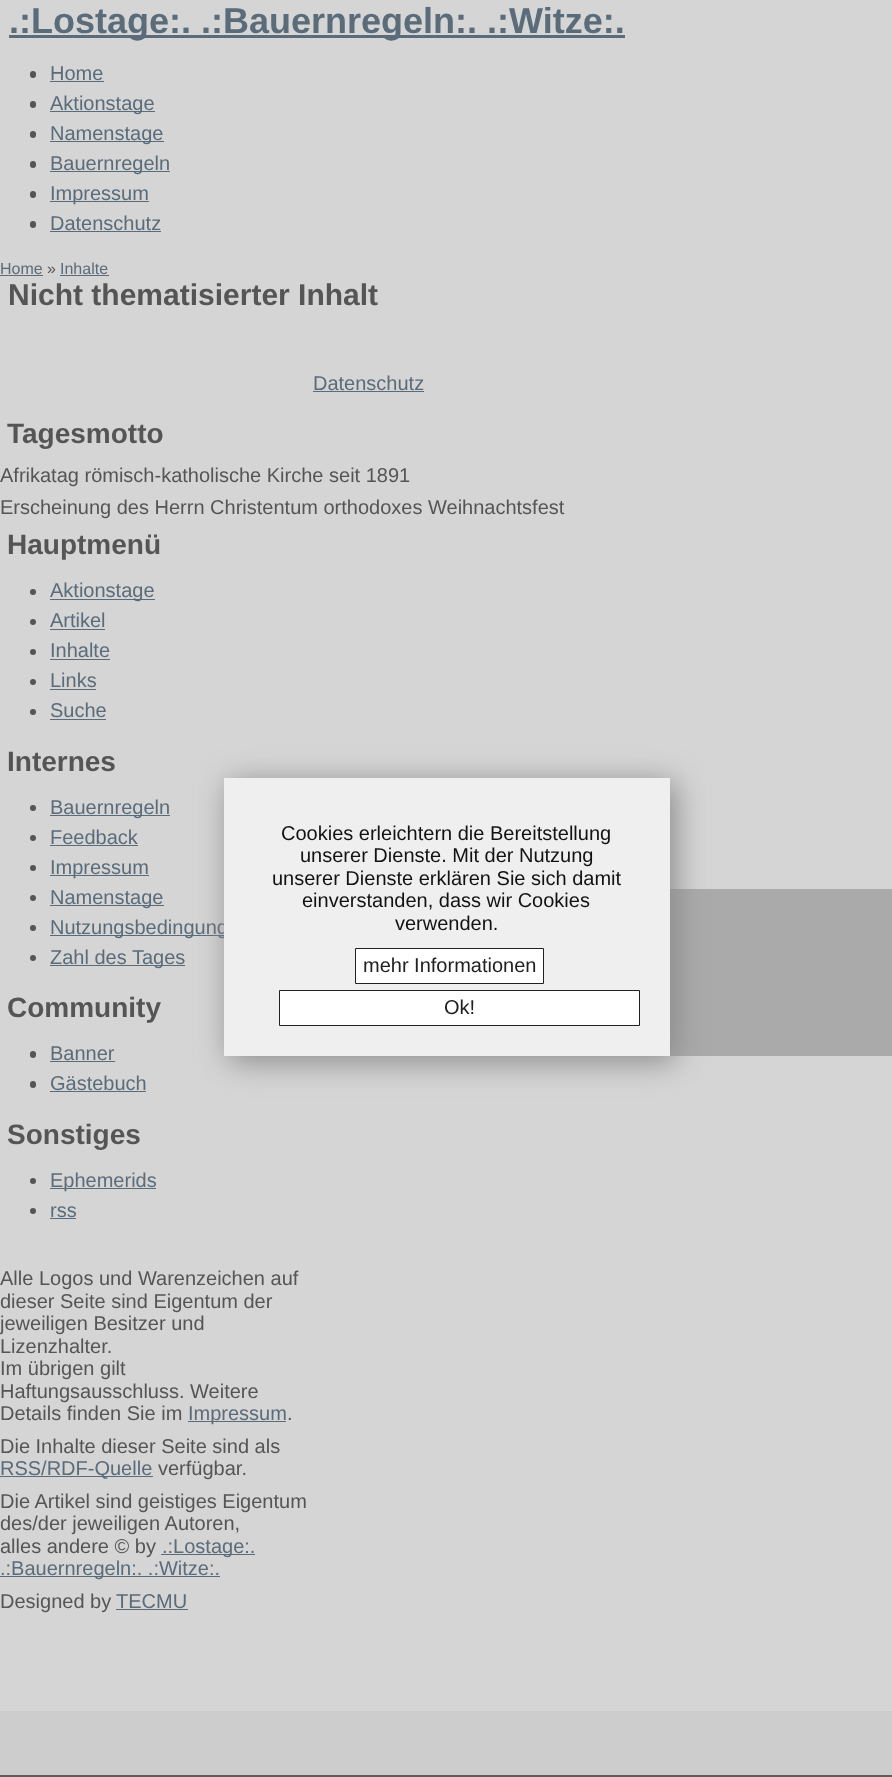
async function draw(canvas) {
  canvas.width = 892
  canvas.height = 1777
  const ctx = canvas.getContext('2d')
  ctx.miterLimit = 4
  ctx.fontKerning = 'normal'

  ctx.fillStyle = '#d5d5d5'
  ctx.fillRect(0, 0, 892, 1777)
  ctx.fillStyle = '#5a6b7a'
  ctx.fillRect(9, 35, 616, 3)
  ctx.font = 'bold 36px Liberation Sans'
  ctx.fillText('.:Lostage:. .:Bauernregeln:. .:Witze:.', 9, 33)
  ctx.fillStyle = '#555'
  ctx.beginPath()
  ctx.roundRect(30, 71, 6, 7, 3)
  ctx.fill()
  ctx.font = '20px Liberation Sans'
  ctx.fillStyle = '#5a6b7a'
  ctx.fillText('Home', 50, 80)
  ctx.fillRect(50, 81, 54, 1)
  ctx.fillStyle = '#555'
  ctx.beginPath()
  ctx.roundRect(30, 101, 6, 7, 3)
  ctx.fill()
  ctx.fillStyle = '#5a6b7a'
  ctx.fillRect(50, 111, 105, 1)
  ctx.fillText('Aktionstage', 50, 110)
  ctx.fillStyle = '#555'
  ctx.beginPath()
  ctx.roundRect(30, 131, 6, 7, 3)
  ctx.fill()
  ctx.fillStyle = '#5a6b7a'
  ctx.fillRect(50, 141, 114, 1)
  ctx.fillText('Namenstage', 50, 140)
  ctx.fillStyle = '#555'
  ctx.beginPath()
  ctx.roundRect(30, 161, 6, 7, 3)
  ctx.fill()
  ctx.fillStyle = '#5a6b7a'
  ctx.fillRect(50, 171, 120, 1)
  ctx.fillText('Bauernregeln', 50, 170)
  ctx.fillStyle = '#555'
  ctx.beginPath()
  ctx.roundRect(30, 191, 6, 7, 3)
  ctx.fill()
  ctx.fillStyle = '#5a6b7a'
  ctx.fillRect(50, 201, 99, 1)
  ctx.fillText('Impressum', 50, 200)
  ctx.fillStyle = '#555'
  ctx.beginPath()
  ctx.roundRect(30, 221, 6, 7, 3)
  ctx.fill()
  ctx.fillStyle = '#5a6b7a'
  ctx.fillText('Datenschutz', 50, 230)
  ctx.fillRect(50, 231, 111, 1)
  ctx.font = '16px Liberation Sans'
  ctx.fillText('Home', 0, 274)
  ctx.fillRect(0, 275, 43, 1)
  ctx.fillStyle = '#555'
  ctx.fillText('»', 47, 274)
  ctx.fillStyle = '#5a6b7a'
  ctx.fillText('Inhalte', 60, 274)
  ctx.fillRect(60, 275, 49, 1)
  ctx.font = 'bold 30px Liberation Sans'
  ctx.fillStyle = '#555'
  ctx.fillText('Nicht thematisierter Inhalt', 8, 305)
  ctx.font = '20px Liberation Sans'
  ctx.fillStyle = '#5a6b7a'
  ctx.fillText('Datenschutz', 313, 390)
  ctx.fillRect(313, 391, 111, 1)
  ctx.font = 'bold 28px Liberation Sans'
  ctx.fillStyle = '#555'
  ctx.fillText('Tagesmotto', 7, 443)
  ctx.font = '20px Liberation Sans'
  ctx.fillText('Afrikatag römisch-katholische Kirche seit 1891', 0, 482)
  ctx.fillText('Erscheinung des Herrn Christentum orthodoxes Weihnachtsfest', 0, 514)
  ctx.font = 'bold 28px Liberation Sans'
  ctx.fillText('Hauptmenü', 7, 554)
  ctx.beginPath()
  ctx.arc(33, 592, 3, 0, 2 * Math.PI)
  ctx.fill()
  ctx.fillStyle = '#5a6b7a'
  ctx.fillRect(50, 599, 105, 1)
  ctx.font = '20px Liberation Sans'
  ctx.fillText('Aktionstage', 50, 597)
  ctx.fillStyle = '#555'
  ctx.beginPath()
  ctx.arc(33, 622, 3, 0, 2 * Math.PI)
  ctx.fill()
  ctx.fillStyle = '#5a6b7a'
  ctx.fillText('Artikel', 50, 627)
  ctx.fillRect(50, 629, 55, 1)
  ctx.fillStyle = '#555'
  ctx.beginPath()
  ctx.arc(33, 652, 3, 0, 2 * Math.PI)
  ctx.fill()
  ctx.fillStyle = '#5a6b7a'
  ctx.fillText('Inhalte', 50, 657)
  ctx.fillRect(50, 659, 60, 1)
  ctx.fillStyle = '#555'
  ctx.beginPath()
  ctx.arc(33, 682, 3, 0, 2 * Math.PI)
  ctx.fill()
  ctx.fillStyle = '#5a6b7a'
  ctx.fillText('Links', 50, 687)
  ctx.fillRect(50, 689, 46, 1)
  ctx.fillStyle = '#555'
  ctx.beginPath()
  ctx.arc(33, 712, 3, 0, 2 * Math.PI)
  ctx.fill()
  ctx.fillStyle = '#5a6b7a'
  ctx.fillText('Suche', 50, 717)
  ctx.fillRect(50, 719, 56, 1)
  ctx.font = 'bold 28px Liberation Sans'
  ctx.fillStyle = '#555'
  ctx.fillText('Internes', 7, 771)
  ctx.beginPath()
  ctx.arc(33, 808, 3, 0, 2 * Math.PI)
  ctx.fill()
  ctx.fillStyle = '#5a6b7a'
  ctx.fillRect(50, 815, 120, 1)
  ctx.font = '20px Liberation Sans'
  ctx.fillText('Bauernregeln', 50, 814)
  ctx.fillStyle = '#555'
  ctx.beginPath()
  ctx.arc(33, 838, 3, 0, 2 * Math.PI)
  ctx.fill()
  ctx.fillStyle = '#5a6b7a'
  ctx.fillText('Feedback', 50, 844)
  ctx.fillRect(50, 845, 88, 1)
  ctx.fillStyle = '#555'
  ctx.beginPath()
  ctx.arc(33, 868, 3, 0, 2 * Math.PI)
  ctx.fill()
  ctx.fillStyle = '#5a6b7a'
  ctx.fillRect(50, 875, 99, 1)
  ctx.fillText('Impressum', 50, 874)
  ctx.fillStyle = '#555'
  ctx.beginPath()
  ctx.arc(33, 898, 3, 0, 2 * Math.PI)
  ctx.fill()
  ctx.fillStyle = '#5a6b7a'
  ctx.fillRect(50, 905, 114, 1)
  ctx.fillText('Namenstage', 50, 904)
  ctx.fillStyle = '#555'
  ctx.beginPath()
  ctx.arc(33, 928, 3, 0, 2 * Math.PI)
  ctx.fill()
  ctx.fillStyle = '#5a6b7a'
  ctx.fillRect(50, 935, 174, 1)
  ctx.fillText('Nutzungsbedingung', 50, 934)
  ctx.fillStyle = '#555'
  ctx.beginPath()
  ctx.arc(33, 958, 3, 0, 2 * Math.PI)
  ctx.fill()
  ctx.fillStyle = '#5a6b7a'
  ctx.fillRect(50, 965, 135, 1)
  ctx.fillText('Zahl des Tages', 50, 964)
  ctx.font = 'bold 28px Liberation Sans'
  ctx.fillStyle = '#555'
  ctx.fillText('Community', 7, 1017)
  ctx.beginPath()
  ctx.roundRect(30, 1051, 6, 7, 3)
  ctx.fill()
  ctx.font = '20px Liberation Sans'
  ctx.fillStyle = '#5a6b7a'
  ctx.fillText('Banner', 50, 1060)
  ctx.fillRect(50, 1061, 65, 1)
  ctx.fillStyle = '#555'
  ctx.beginPath()
  ctx.roundRect(30, 1081, 6, 7, 3)
  ctx.fill()
  ctx.fillStyle = '#5a6b7a'
  ctx.fillText('Gästebuch', 50, 1090)
  ctx.fillRect(50, 1091, 96, 1)
  ctx.font = 'bold 28px Liberation Sans'
  ctx.fillStyle = '#555'
  ctx.fillText('Sonstiges', 7, 1144)
  ctx.beginPath()
  ctx.arc(33, 1181, 3, 0, 2 * Math.PI)
  ctx.fill()
  ctx.fillStyle = '#5a6b7a'
  ctx.fillRect(50, 1188, 106, 1)
  ctx.font = '20px Liberation Sans'
  ctx.fillText('Ephemerids', 50, 1187)
  ctx.fillStyle = '#555'
  ctx.beginPath()
  ctx.arc(33, 1211, 3, 0, 2 * Math.PI)
  ctx.fill()
  ctx.fillStyle = '#5a6b7a'
  ctx.fillText('rss', 50, 1217)
  ctx.fillRect(50, 1218, 26, 1)
  ctx.fillStyle = '#555'
  ctx.fillText('Alle Logos und Warenzeichen auf', 0, 1285)
  ctx.fillText('dieser Seite sind Eigentum der', 0, 1308)
  ctx.fillText('jeweiligen Besitzer und', 0, 1330)
  ctx.fillText('Lizenzhalter.', 0, 1353)
  ctx.fillText('Im übrigen gilt', 0, 1375)
  ctx.fillText('Haftungsausschluss. Weitere', 0, 1398)
  ctx.fillText('Details finden Sie im', 0, 1420)
  ctx.fillStyle = '#5a6b7a'
  ctx.fillRect(188, 1421, 98, 1)
  ctx.fillText('Impressum', 188, 1420)
  ctx.fillStyle = '#555'
  ctx.fillText('.', 287, 1420)
  ctx.fillText('Die Inhalte dieser Seite sind als', 0, 1453)
  ctx.fillStyle = '#5a6b7a'
  ctx.fillRect(0, 1476, 153, 1)
  ctx.fillText('RSS/RDF-Quelle', 0, 1475)
  ctx.fillStyle = '#555'
  ctx.fillText('verfügbar.', 158, 1475)
  ctx.fillText('Die Artikel sind geistiges Eigentum', 0, 1508)
  ctx.fillText('des/der jeweiligen Autoren,', 0, 1530)
  ctx.fillText('alles andere © by', 0, 1553)
  ctx.fillStyle = '#5a6b7a'
  ctx.fillRect(161, 1554, 94, 1)
  ctx.fillText('.:Lostage:.', 162, 1553)
  ctx.fillRect(0, 1576, 220, 1)
  ctx.fillText('.:Bauernregeln:. .:Witze:.', 0, 1575)
  ctx.fillStyle = '#555'
  ctx.fillText('Designed by', 0, 1608)
  ctx.fillStyle = '#5a6b7a'
  ctx.fillText('TECMU', 116, 1608)
  ctx.fillRect(116, 1609, 72, 1)
  ctx.fillStyle = '#cdcdcd'
  ctx.fillRect(0, 1711, 892, 64)
  ctx.fillStyle = '#5e5e5e'
  ctx.fillRect(0, 1775, 892, 2)
  ctx.fillStyle = '#aaa'
  ctx.fillRect(670, 889, 222, 167)
  ctx.fillStyle = '#888'
  ctx.filter = 'blur(15.5px)'
  ctx.beginPath()
  ctx.rect(229, 783, 446, 278)
  ctx.fill()
  ctx.filter = 'none'
  ctx.fillStyle = '#efefef'
  ctx.fillRect(224, 778, 446, 278)
  ctx.fillStyle = '#121212'
  ctx.fillText('Cookies erleichtern die Bereitstellung', 281, 840)
  ctx.fillText('unserer Dienste. Mit der Nutzung', 300, 862)
  ctx.fillText('unserer Dienste erklären Sie sich damit', 272, 885)
  ctx.fillText('einverstanden, dass wir Cookies', 302, 907)
  ctx.fillText('verwenden.', 395, 930)
  ctx.fillStyle = '#fff'
  ctx.beginPath()
  ctx.rect(355.5, 948.5, 188, 35)
  ctx.fill()
  ctx.strokeStyle = '#212121'
  ctx.stroke()
  ctx.fillStyle = '#212121'
  ctx.fillText('mehr Informationen', 363, 972)
  ctx.fillStyle = '#fff'
  ctx.beginPath()
  ctx.rect(279.5, 990.5, 360, 35)
  ctx.fill()
  ctx.stroke()
  ctx.fillStyle = '#212121'
  ctx.fillText('Ok!', 444, 1014)
}

draw(document.querySelector('canvas'))
